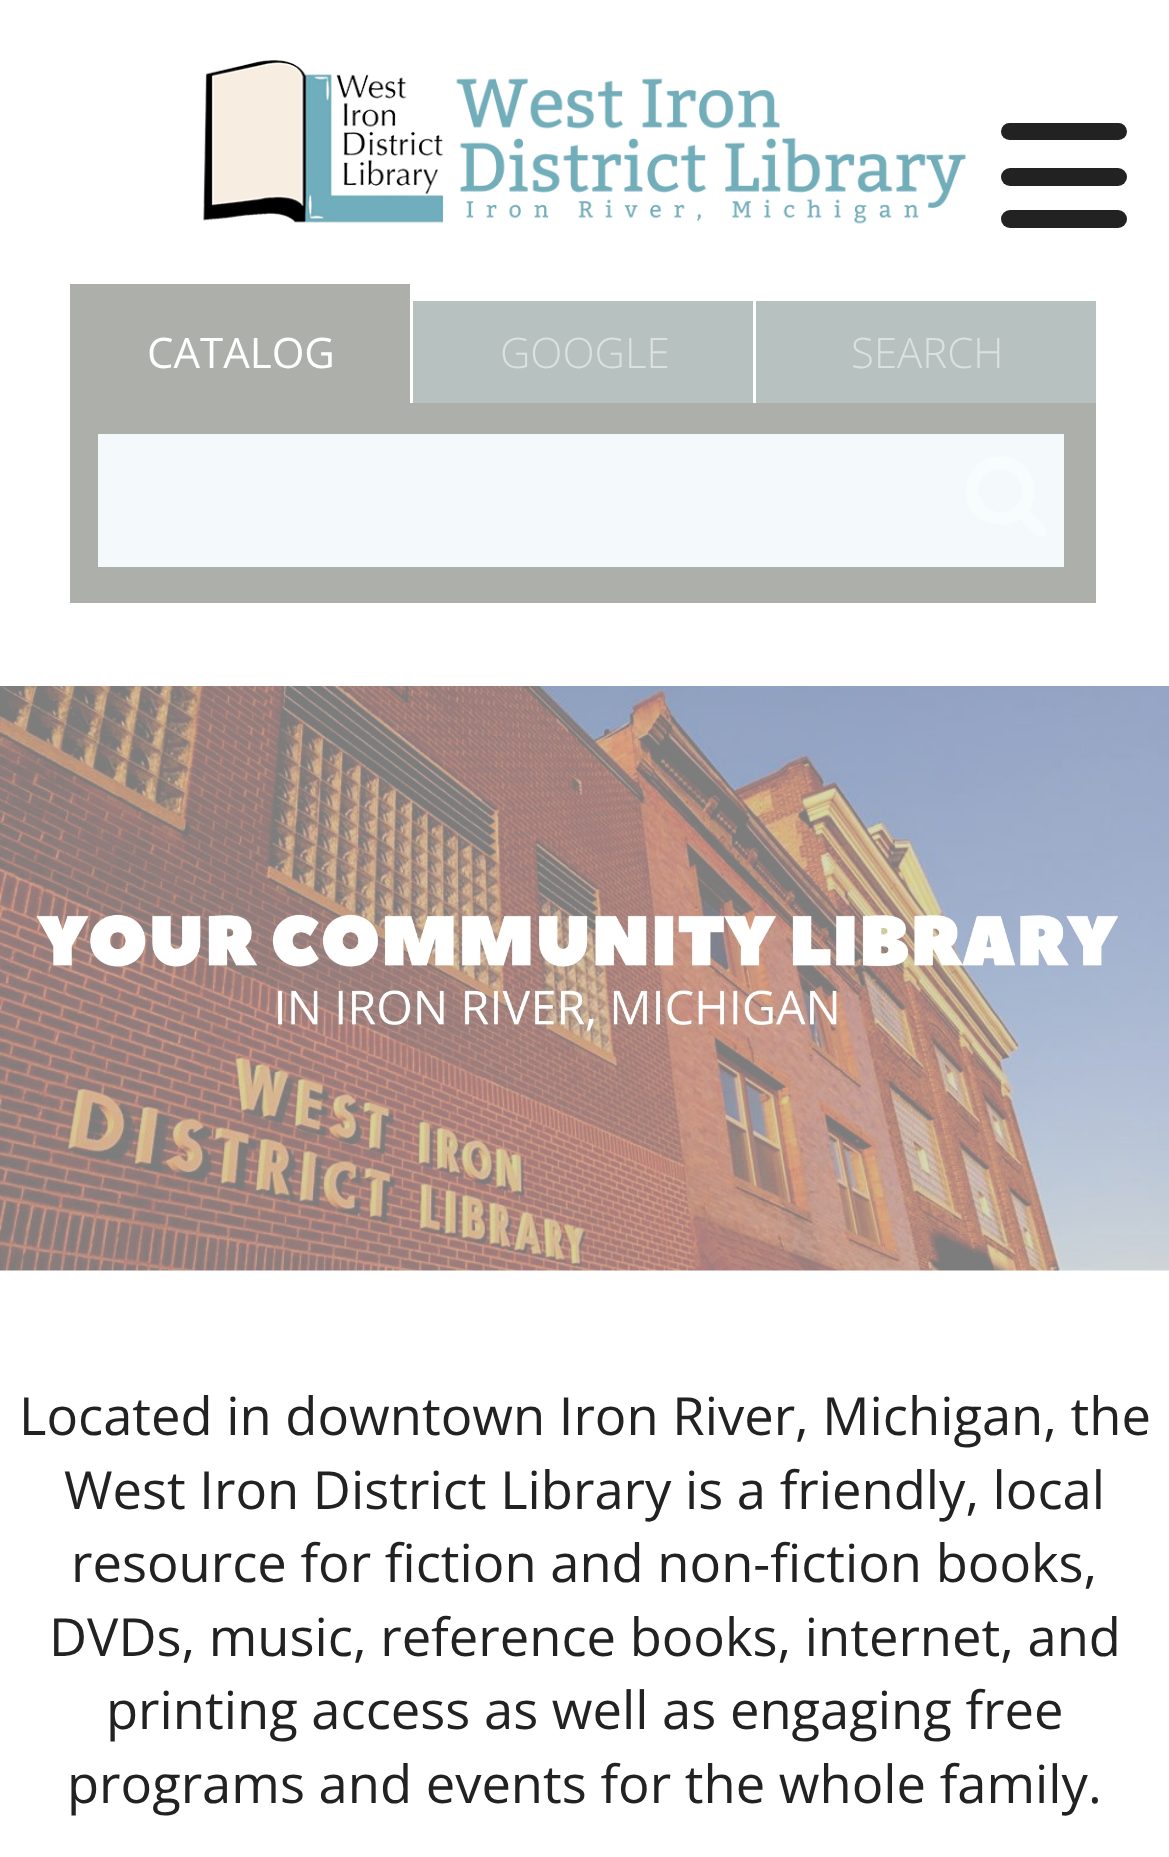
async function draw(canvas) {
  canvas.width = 1169
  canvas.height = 1857
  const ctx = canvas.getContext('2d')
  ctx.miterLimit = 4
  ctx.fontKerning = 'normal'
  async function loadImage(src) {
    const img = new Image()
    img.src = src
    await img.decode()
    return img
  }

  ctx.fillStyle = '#fff'
  ctx.fillRect(0, 0, 1169, 1857)
  ctx.fillStyle = '#222'
  ctx.beginPath()
  ctx.roundRect(1001, 123, 126, 17, 8.5)
  ctx.fill()
  ctx.beginPath()
  ctx.roundRect(1001, 168, 126, 18, 9)
  ctx.fill()
  ctx.beginPath()
  ctx.roundRect(1001, 210, 126, 18, 9)
  ctx.fill()
  ctx.drawImage(await loadImage('image0.png'), 203, 60, 763, 164)
  ctx.fillStyle = '#acafaa'
  ctx.fillRect(70, 284, 340, 119)
  ctx.font = '42px Open Sans'
  ctx.fillStyle = '#fff'
  ctx.fillText('CATALOG', 147, 368)
  ctx.fillStyle = '#b6c1c0'
  ctx.fillRect(413, 301, 340, 102)
  ctx.font = '300 42px Open Sans'
  ctx.fillStyle = '#dbe0e0'
  ctx.fillText('GOOGLE', 500, 368)
  ctx.fillStyle = '#b6c1c0'
  ctx.fillRect(756, 301, 340, 102)
  ctx.fillStyle = '#dbe0e0'
  ctx.fillText('SEARCH', 851, 368)
  ctx.fillStyle = '#acafaa'
  ctx.fillRect(70, 403, 1026, 200)
  ctx.fillStyle = '#f4fafc'
  ctx.fillRect(98, 434, 966, 133)
  ctx.fillStyle = '#f7fcfd'
  ctx.beginPath()
  ctx.moveTo(1016, 506)
  ctx.bezierCurveTo(1036, 486, 1005, 455, 985, 475)
  ctx.bezierCurveTo(965, 495, 996, 526, 1016, 506)
  ctx.closePath()
  ctx.moveTo(1047, 531)
  ctx.bezierCurveTo(1047, 533, 1046, 535, 1044, 536)
  ctx.bezierCurveTo(1039, 540, 1034, 533, 1031, 530)
  ctx.lineTo(1020, 519)
  ctx.bezierCurveTo(1003, 531, 978, 524, 969, 506)
  ctx.bezierCurveTo(966, 498, 965, 490, 967, 482)
  ctx.bezierCurveTo(976, 449, 1023, 448, 1033, 480)
  ctx.bezierCurveTo(1036, 490, 1035, 502, 1029, 510)
  ctx.lineTo(1045, 527)
  ctx.bezierCurveTo(1047, 528, 1047, 530, 1047, 531)
  ctx.closePath()
  ctx.fill()
  ctx.drawImage(await loadImage('image1.png'), 0, 686, 1169, 585)
  ctx.font = '52.5px Open Sans'
  ctx.fillStyle = '#222'
  ctx.fillText('Located in downtown Iron River, Michigan, the', 19, 1435)
  ctx.fillText('West Iron District Library is a friendly, local', 64, 1509)
  ctx.fillText('resource for fiction and non-fiction books,', 71, 1582)
  ctx.fillText('DVDs, music, reference books, internet, and', 49, 1656)
  ctx.fillText('printing access as well as engaging free', 106, 1729)
  ctx.fillText('programs and events for the whole family.', 67, 1803)
}

draw(document.querySelector('canvas'))
